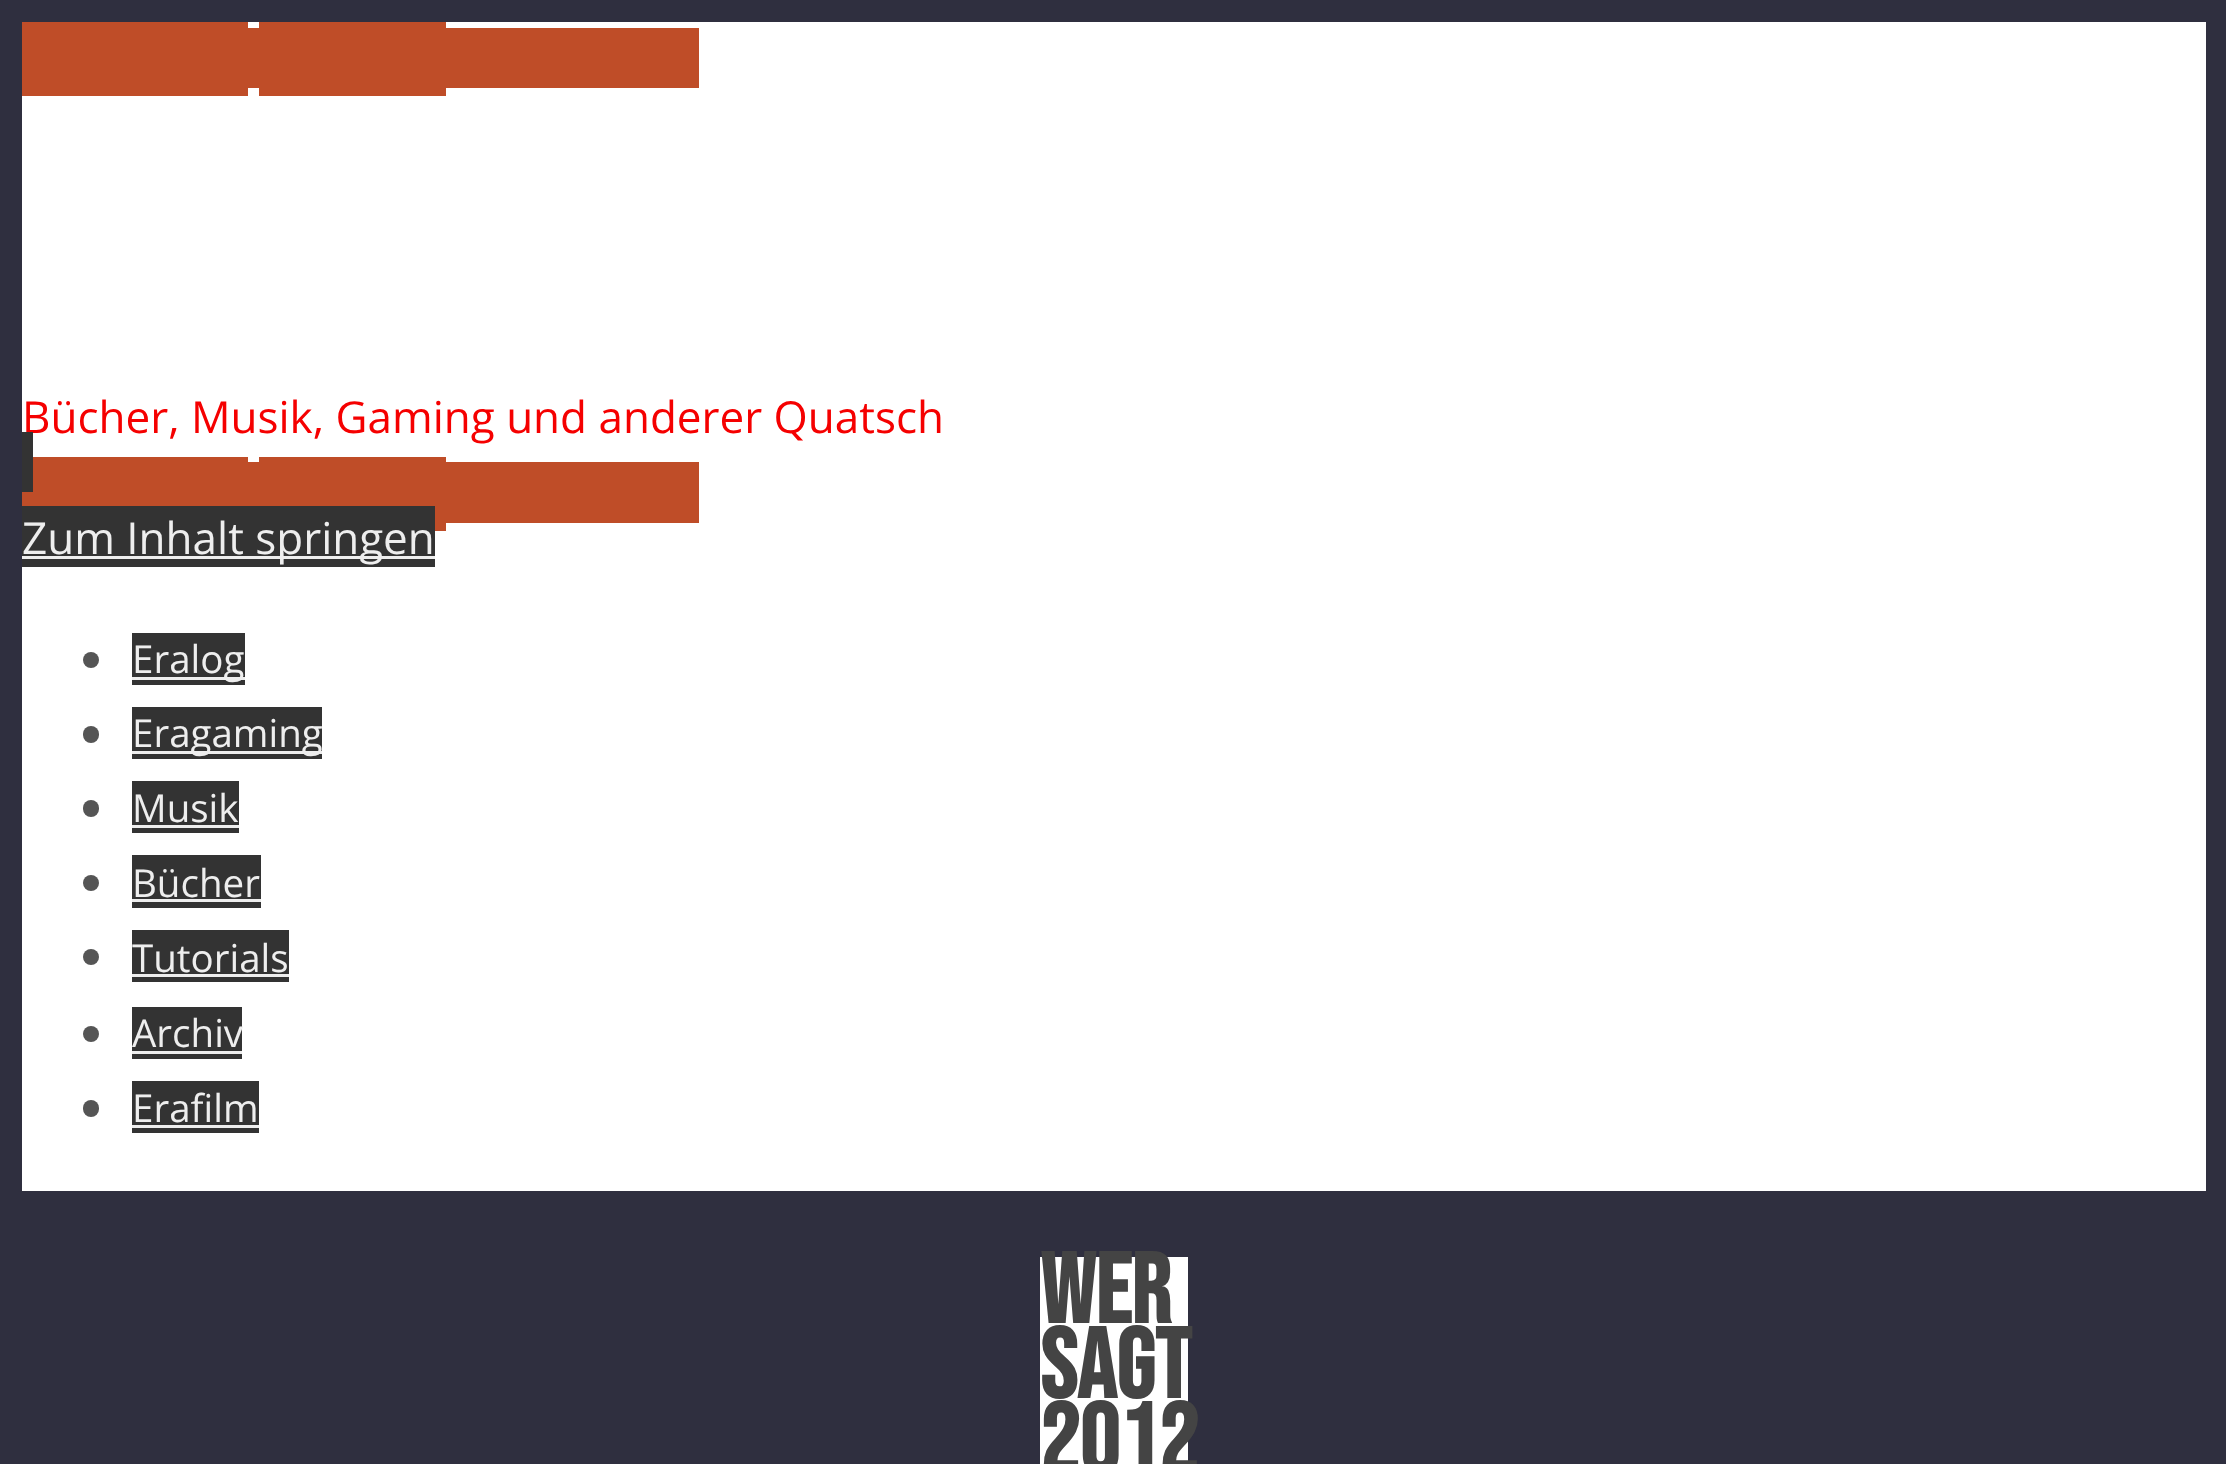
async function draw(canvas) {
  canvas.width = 2226
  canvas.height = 1464
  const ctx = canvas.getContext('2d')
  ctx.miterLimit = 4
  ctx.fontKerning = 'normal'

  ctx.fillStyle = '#2f2f3f'
  ctx.fillRect(0, 0, 2226, 1464)
  ctx.fillStyle = '#fff'
  ctx.fillRect(248, 22, 1958, 74)
  ctx.fillStyle = '#bf4d28'
  ctx.fillRect(22, 22, 226, 74)
  ctx.fillRect(248, 28, 11, 60)
  ctx.fillRect(259, 22, 187, 74)
  ctx.fillRect(446, 28, 253, 60)
  ctx.fillStyle = '#fff'
  ctx.fillRect(22, 96, 2184, 1095)
  ctx.font = '44px Open Sans'
  ctx.fillStyle = '#f50000'
  ctx.fillText('Bücher, Musik, Gaming und anderer Quatsch', 22, 433)
  ctx.fillStyle = '#bf4d28'
  ctx.fillRect(22, 457, 226, 49)
  ctx.fillRect(248, 462, 11, 44)
  ctx.fillRect(259, 457, 187, 74)
  ctx.fillRect(446, 462, 253, 61)
  ctx.fillStyle = '#333'
  ctx.fillRect(22, 432, 11, 60)
  ctx.fillRect(22, 506, 413, 61)
  ctx.fillStyle = '#eee'
  ctx.fillRect(22, 556, 413, 3)
  ctx.fillText('Zum Inhalt springen', 22, 554)
  ctx.fillStyle = '#555'
  ctx.beginPath()
  ctx.arc(91, 660, 8, 0, 2 * Math.PI)
  ctx.fill()
  ctx.fillStyle = '#333'
  ctx.fillRect(132, 633, 113, 52)
  ctx.fillStyle = '#eee'
  ctx.fillRect(132, 677, 113, 3)
  ctx.font = '38.5px Open Sans'
  ctx.fillText('Eralog', 132, 673)
  ctx.fillStyle = '#555'
  ctx.beginPath()
  ctx.roundRect(83, 726, 16, 17, 8)
  ctx.fill()
  ctx.fillStyle = '#333'
  ctx.fillRect(132, 707, 190, 52)
  ctx.fillStyle = '#eee'
  ctx.fillRect(132, 751, 190, 3)
  ctx.fillText('Eragaming', 132, 747)
  ctx.fillStyle = '#555'
  ctx.beginPath()
  ctx.roundRect(83, 800, 16, 17, 8)
  ctx.fill()
  ctx.fillStyle = '#333'
  ctx.fillRect(132, 781, 107, 52)
  ctx.fillStyle = '#eee'
  ctx.fillText('Musik', 132, 822)
  ctx.fillRect(132, 825, 107, 3)
  ctx.fillStyle = '#555'
  ctx.beginPath()
  ctx.arc(91, 883, 8, 0, 2 * Math.PI)
  ctx.fill()
  ctx.fillStyle = '#333'
  ctx.fillRect(132, 855, 129, 53)
  ctx.fillStyle = '#eee'
  ctx.fillText('Bücher', 132, 897)
  ctx.fillRect(132, 899, 129, 3)
  ctx.fillStyle = '#555'
  ctx.beginPath()
  ctx.arc(91, 957, 8, 0, 2 * Math.PI)
  ctx.fill()
  ctx.fillStyle = '#333'
  ctx.fillRect(132, 930, 157, 52)
  ctx.fillStyle = '#eee'
  ctx.fillText('Tutorials', 132, 972)
  ctx.fillRect(132, 974, 157, 3)
  ctx.fillStyle = '#555'
  ctx.beginPath()
  ctx.arc(91, 1034, 8, 0, 2 * Math.PI)
  ctx.fill()
  ctx.fillStyle = '#333'
  ctx.fillRect(132, 1007, 110, 52)
  ctx.fillStyle = '#eee'
  ctx.fillText('Archiv', 132, 1047)
  ctx.fillRect(132, 1051, 110, 3)
  ctx.fillStyle = '#555'
  ctx.beginPath()
  ctx.roundRect(83, 1100, 16, 17, 8)
  ctx.fill()
  ctx.fillStyle = '#333'
  ctx.fillRect(132, 1081, 127, 52)
  ctx.fillStyle = '#eee'
  ctx.fillText('Erafilm', 132, 1122)
  ctx.fillRect(132, 1125, 127, 3)
  ctx.fillStyle = '#fff'
  ctx.fillRect(1040, 1257, 148, 207)
  ctx.font = 'bold 99px Bebas Neue'
  ctx.fillStyle = '#444'
  ctx.fillText('Wer', 1040, 1323)
  ctx.fillText('sagt', 1040, 1398)
  ctx.fillText('2012', 1040, 1473)
}

draw(document.querySelector('canvas'))
